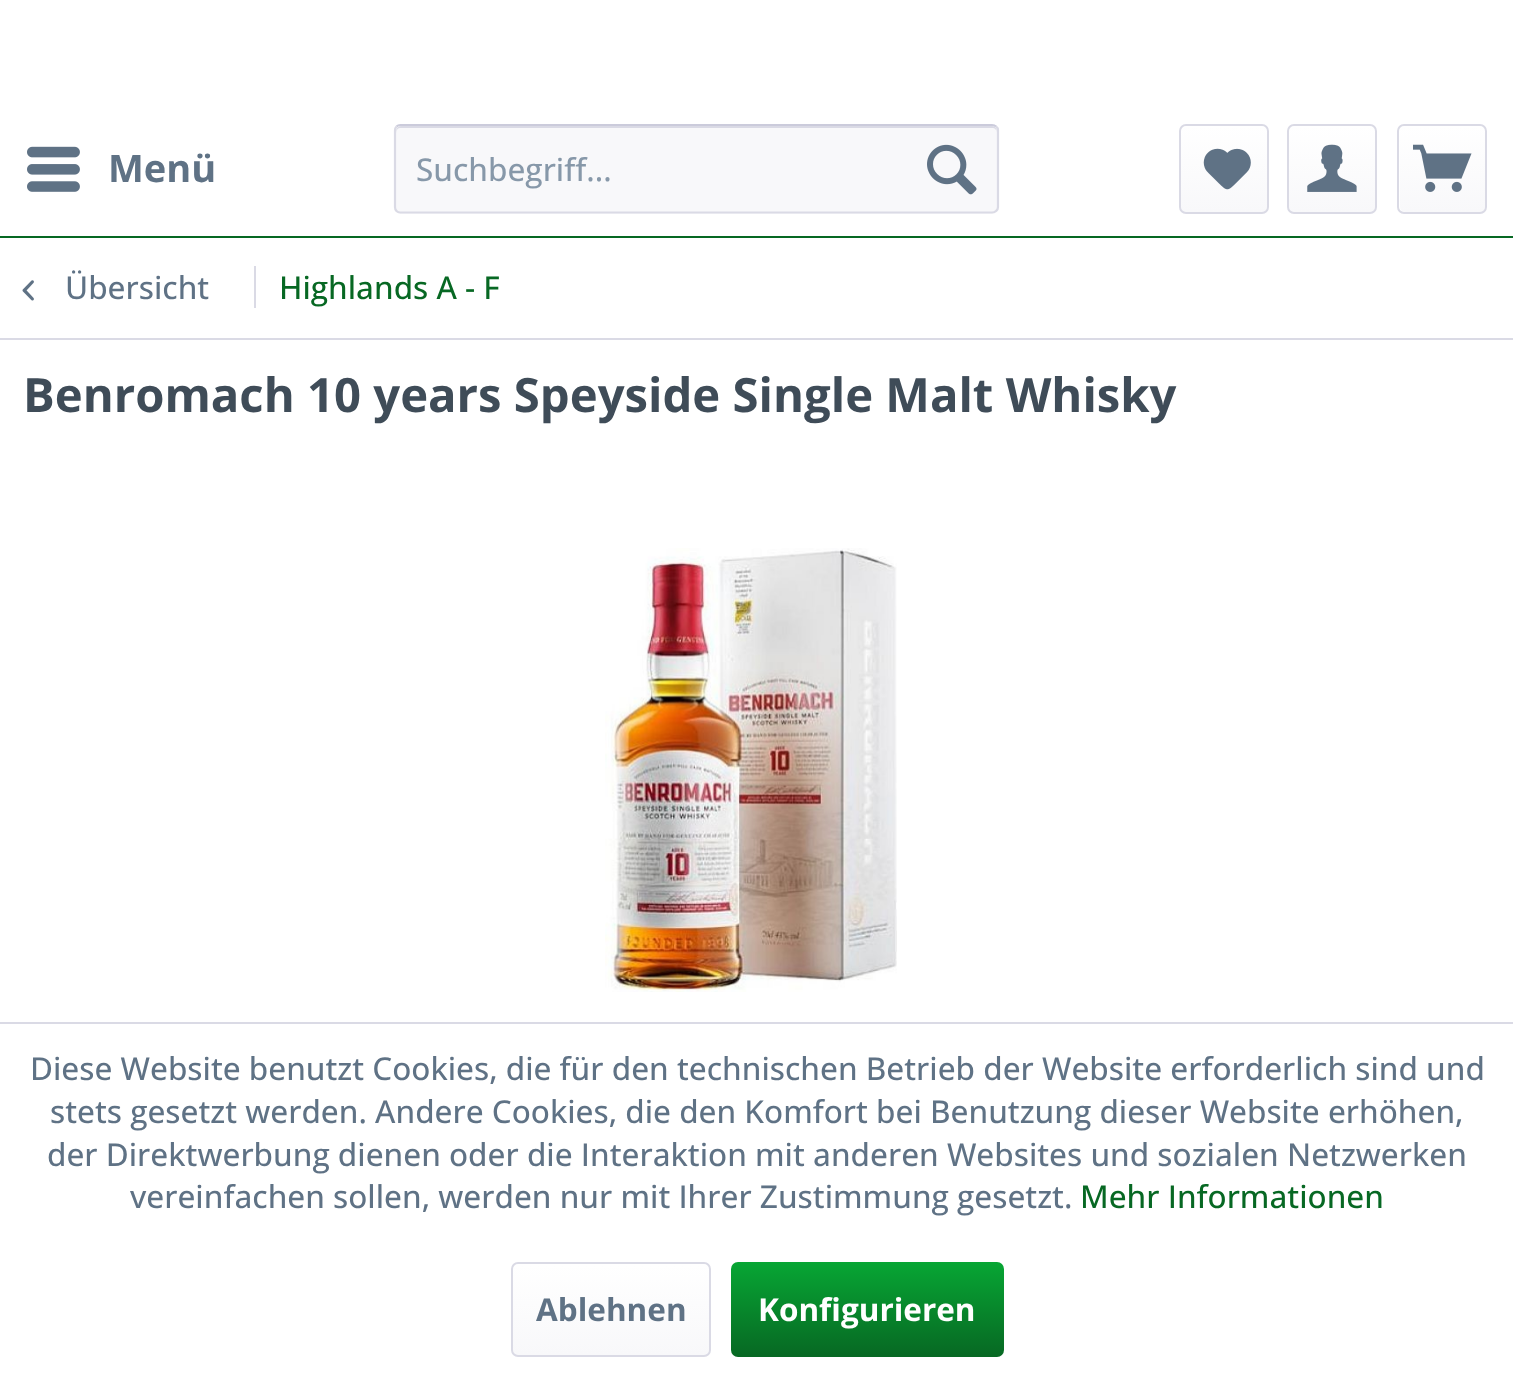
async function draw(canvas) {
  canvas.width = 1513
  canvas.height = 1378
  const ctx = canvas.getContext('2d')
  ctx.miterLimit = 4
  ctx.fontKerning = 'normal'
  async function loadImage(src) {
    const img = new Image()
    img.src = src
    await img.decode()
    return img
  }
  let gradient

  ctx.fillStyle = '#fff'
  ctx.fillRect(0, 0, 1513, 1378)
  ctx.fillStyle = '#076823'
  ctx.fillRect(0, 236, 1513, 2)
  ctx.drawImage(await loadImage('image0.png'), 27, 146, 53, 46)
  ctx.font = 'bold 38px Open Sans'
  ctx.fillStyle = '#5f7285'
  ctx.fillText('Menü', 108, 182)
  ctx.fillStyle = '#f8f8fa'
  ctx.beginPath()
  ctx.roundRect(394, 124, 605, 90, 7)
  ctx.fill()
  ctx.fillStyle = '#dadae5'
  ctx.beginPath()
  ctx.moveTo(400, 128)
  ctx.lineTo(992, 128)
  ctx.bezierCurveTo(995, 128, 997, 130, 997, 133)
  ctx.bezierCurveTo(997, 130, 996, 126, 992, 126)
  ctx.lineTo(401, 126)
  ctx.bezierCurveTo(397, 126, 396, 130, 396, 133)
  ctx.bezierCurveTo(396, 130, 398, 128, 400, 128)
  ctx.closePath()
  ctx.fill()
  ctx.beginPath()
  ctx.moveTo(396.5, 126.5)
  ctx.bezierCurveTo(397.5, 125.5, 399, 125, 400.5, 125)
  ctx.lineTo(992, 125)
  ctx.bezierCurveTo(993.5, 125, 995, 125.5, 996, 126.5)
  ctx.strokeStyle = '#cbcbdb'
  ctx.lineWidth = 2.2
  ctx.stroke()
  ctx.beginPath()
  ctx.moveTo(996, 126.5)
  ctx.bezierCurveTo(997.5, 127.5, 998, 129, 998, 130.5)
  ctx.lineTo(998, 207)
  ctx.bezierCurveTo(998, 208.5, 997.5, 210, 996, 211)
  ctx.bezierCurveTo(995, 212, 993.5, 212.5, 992, 212.5)
  ctx.lineTo(400.5, 212.5)
  ctx.bezierCurveTo(399, 212.5, 397.5, 212, 396.5, 211)
  ctx.bezierCurveTo(395.5, 210, 395, 208.5, 395, 207)
  ctx.lineTo(395, 130.5)
  ctx.bezierCurveTo(395, 129, 395.5, 127.5, 396.5, 126.5)
  ctx.strokeStyle = '#dadae5'
  ctx.stroke()
  ctx.font = '500 31.5px Open Sans'
  ctx.fillStyle = '#8798a9'
  ctx.fillText('Suchbegriff...', 416, 181)
  ctx.drawImage(await loadImage('image1.png'), 927, 144, 50, 51)
  gradient = ctx.createLinearGradient(1224, 126, 1224, 212)
  gradient.addColorStop(0, '#fff')
  gradient.addColorStop(1, '#f8f8fa')
  ctx.fillStyle = gradient
  ctx.beginPath()
  ctx.roundRect(1181, 126, 86, 86, 5)
  ctx.fill()
  ctx.beginPath()
  ctx.roundRect(1180, 125, 88, 88, 6)
  ctx.lineWidth = 2
  ctx.stroke()
  ctx.drawImage(await loadImage('image2.png'), 1203, 148, 48, 42)
  gradient = ctx.createLinearGradient(1332, 126, 1332, 212)
  gradient.addColorStop(0, '#fff')
  gradient.addColorStop(1, '#f8f8fa')
  ctx.fillStyle = gradient
  ctx.beginPath()
  ctx.roundRect(1289, 126, 86, 86, 5)
  ctx.fill()
  ctx.beginPath()
  ctx.roundRect(1288, 125, 88, 88, 6)
  ctx.stroke()
  ctx.drawImage(await loadImage('image3.png'), 1307, 144, 50, 48)
  gradient = ctx.createLinearGradient(1442, 126, 1442, 212)
  gradient.addColorStop(0, '#fff')
  gradient.addColorStop(1, '#f8f8fa')
  ctx.fillStyle = gradient
  ctx.beginPath()
  ctx.roundRect(1400, 126, 85, 86, 5)
  ctx.fill()
  ctx.beginPath()
  ctx.roundRect(1398, 125, 88, 88, 6)
  ctx.stroke()
  ctx.drawImage(await loadImage('image4.png'), 1413, 144, 59, 48)
  ctx.fillStyle = '#dadae5'
  ctx.fillRect(0, 338, 1513, 2)
  ctx.drawImage(await loadImage('image5.png'), 22, 280, 12, 21)
  ctx.fillStyle = '#5f7285'
  ctx.fillText('Übersicht', 65, 299)
  ctx.fillStyle = '#dadae5'
  ctx.fillRect(254, 266, 2, 42)
  ctx.fillStyle = '#076823'
  ctx.fillText('Highlands A - F', 279, 299)
  ctx.font = 'bold 47.25px Open Sans'
  ctx.fillStyle = '#3f4c58'
  ctx.fillText('Benromach 10 years Speyside Single Malt Whisky', 23, 412)
  ctx.drawImage(await loadImage('image6.png'), 605, 548, 292, 444)
  ctx.fillStyle = '#dadae5'
  ctx.fillRect(0, 1022, 1513, 2)
  ctx.font = '500 31.5px Open Sans'
  ctx.fillStyle = '#5f7285'
  ctx.fillText('Diese Website benutzt Cookies, die für den technischen Betrieb der Website erforderlich sind und', 30, 1080)
  ctx.fillText('stets gesetzt werden. Andere Cookies, die den Komfort bei Benutzung dieser Website erhöhen,', 50, 1123)
  ctx.fillText('der Direktwerbung dienen oder die Interaktion mit anderen Websites und sozialen Netzwerken', 47, 1166)
  ctx.fillText('vereinfachen sollen, werden nur mit Ihrer Zustimmung gesetzt.', 130, 1208)
  ctx.fillStyle = '#076823'
  ctx.fillText('Mehr Informationen', 1080, 1208)
  gradient = ctx.createLinearGradient(611, 1265, 611, 1355)
  gradient.addColorStop(0, '#fff')
  gradient.addColorStop(1, '#f8f8fa')
  ctx.fillStyle = gradient
  ctx.beginPath()
  ctx.roundRect(513, 1265, 196, 90, 5)
  ctx.fill()
  ctx.beginPath()
  ctx.roundRect(512, 1263, 198, 93, 6)
  ctx.stroke()
  ctx.font = 'bold 31.5px Open Sans'
  ctx.fillStyle = '#5f7285'
  ctx.fillText('Ablehnen', 536, 1321)
  gradient = ctx.createLinearGradient(867, 1262, 867, 1357)
  gradient.addColorStop(0, '#07a634')
  gradient.addColorStop(1, '#076823')
  ctx.fillStyle = gradient
  ctx.beginPath()
  ctx.roundRect(731, 1262, 273, 95, 7)
  ctx.fill()
  ctx.fillStyle = '#fff'
  ctx.fillText('Konfigurieren', 758, 1321)
}

draw(document.querySelector('canvas'))
